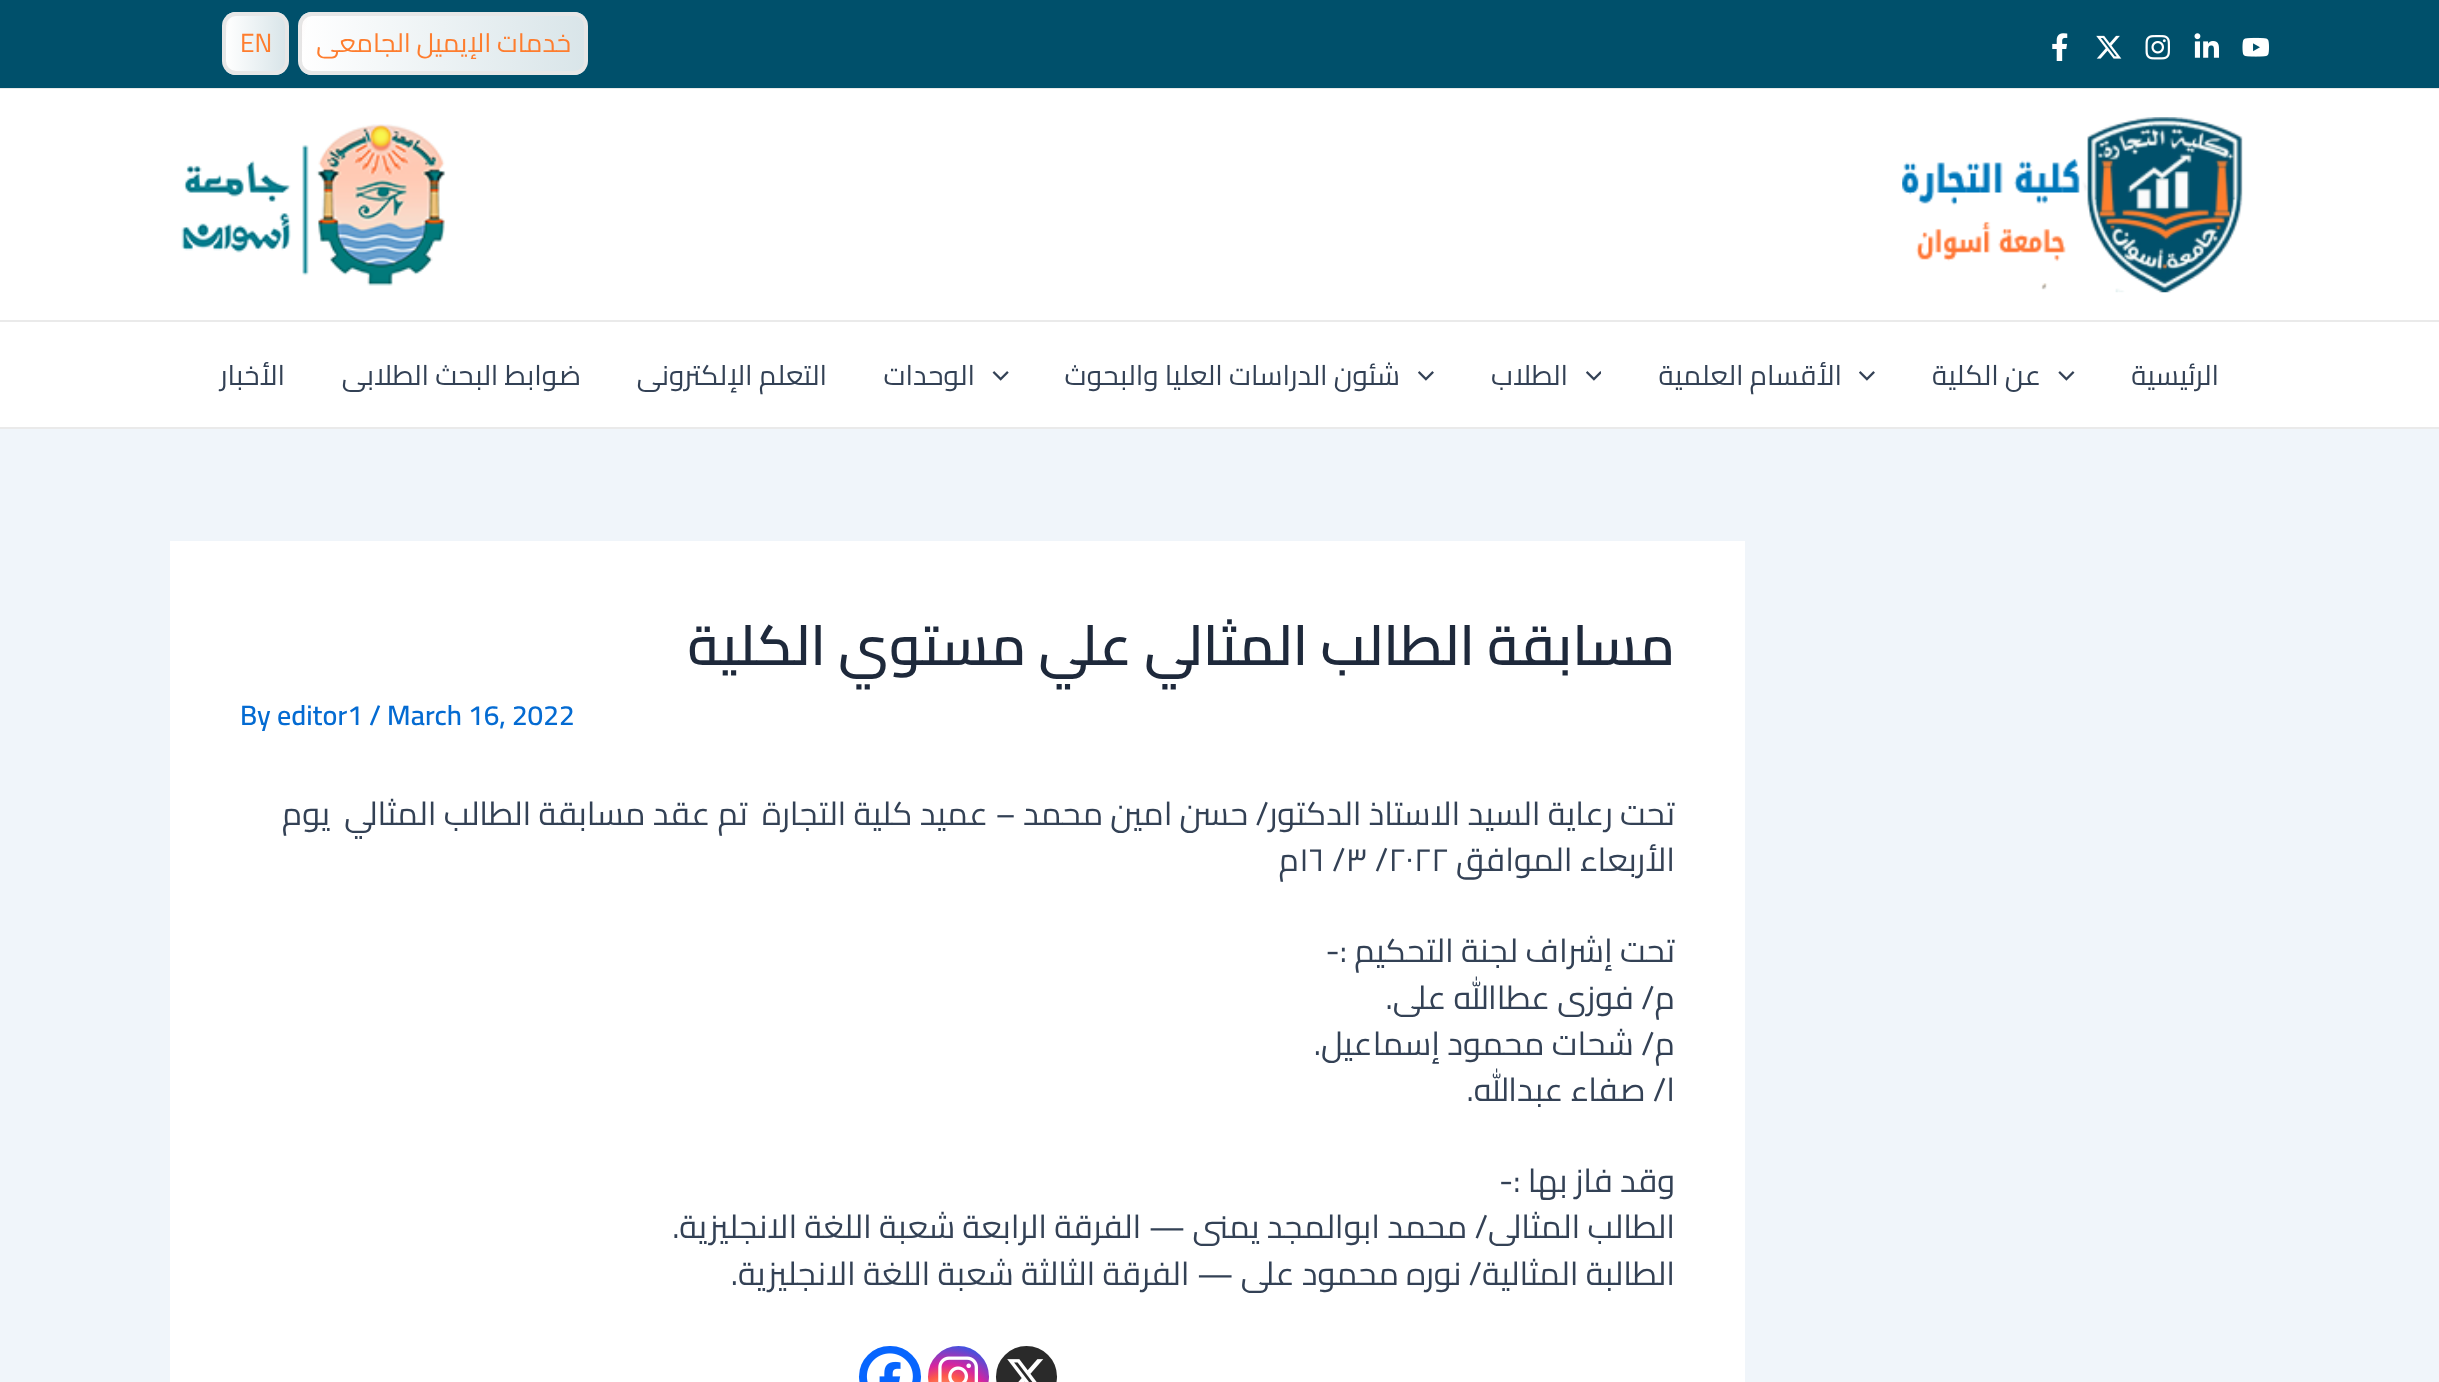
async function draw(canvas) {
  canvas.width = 2439
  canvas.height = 1382
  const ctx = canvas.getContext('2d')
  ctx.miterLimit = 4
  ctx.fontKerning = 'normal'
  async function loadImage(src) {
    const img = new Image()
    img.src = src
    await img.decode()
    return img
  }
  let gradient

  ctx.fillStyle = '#f0f5fa'
  ctx.fillRect(0, 0, 2439, 1382)
  ctx.fillStyle = '#00506b'
  ctx.fillRect(0, 0, 2439, 88)
  ctx.fillStyle = '#eaeaea'
  ctx.fillRect(0, 88, 2439, 1)
  ctx.drawImage(await loadImage('image0.png'), 2242, 37, 27, 20)
  ctx.drawImage(await loadImage('image1.png'), 2194, 33, 25, 25)
  ctx.drawImage(await loadImage('image2.png'), 2145, 35, 25, 25)
  ctx.drawImage(await loadImage('image3.png'), 2096, 35, 26, 24)
  ctx.drawImage(await loadImage('image4.png'), 2052, 33, 16, 28)
  ctx.save()
  ctx.beginPath()
  ctx.roundRect(298, 12, 290, 63, 14)
  ctx.clip()
  gradient = ctx.createLinearGradient(301, 44, 585, 44)
  gradient.addColorStop(0, '#fff')
  gradient.addColorStop(1, '#d9e5e9')
  ctx.fillStyle = gradient
  ctx.fillRect(301, 12, 284, 63)
  ctx.restore()
  ctx.beginPath()
  ctx.roundRect(300, 14, 286, 59, 12)
  ctx.strokeStyle = '#e7e7e7'
  ctx.lineWidth = 4
  ctx.stroke()
  ctx.direction = 'rtl'
  ctx.font = '26.25px Cairo'
  ctx.fillStyle = '#fe7d2e'
  ctx.fillText('خدمات الإيميل الجامعى', 571, 52)
  gradient = ctx.createLinearGradient(300, 68, 21, 19)
  gradient.addColorStop(0, '#cd625100')
  gradient.addColorStop(0.4, '#cd625180')
  gradient.addColorStop(0.6, '#cd625180')
  gradient.addColorStop(1, '#cd625100')
  ctx.fillStyle = gradient
  ctx.beginPath()
  ctx.moveTo(309, 16)
  ctx.lineTo(301, 62)
  ctx.lineTo(301, 33)
  ctx.bezierCurveTo(301, 26, 301, 18, 309, 16)
  ctx.closePath()
  ctx.fill()
  ctx.save()
  ctx.beginPath()
  ctx.roundRect(222, 12, 67, 63, 14)
  ctx.clip()
  gradient = ctx.createLinearGradient(226, 44, 285, 44)
  gradient.addColorStop(0, '#fff')
  gradient.addColorStop(1, '#d9e5e9')
  ctx.fillStyle = gradient
  ctx.fillRect(226, 12, 59, 63)
  ctx.restore()
  ctx.beginPath()
  ctx.roundRect(224, 14, 63, 59, 12)
  ctx.stroke()
  ctx.direction = 'ltr'
  ctx.fillStyle = '#fe7d2e'
  ctx.fillText('EN', 240, 52)
  gradient = ctx.createLinearGradient(225, 49, 166, 39)
  gradient.addColorStop(0, '#cd625100')
  gradient.addColorStop(0.4, '#cd625180')
  gradient.addColorStop(0.6, '#cd625180')
  gradient.addColorStop(1, '#cd625100')
  ctx.fillStyle = gradient
  ctx.beginPath()
  ctx.moveTo(230.5, 18)
  ctx.lineTo(226, 43)
  ctx.lineTo(226, 27)
  ctx.bezierCurveTo(226, 23.5, 227.5, 20, 230.5, 18)
  ctx.closePath()
  ctx.fill()
  ctx.fillStyle = '#fff'
  ctx.fillRect(0, 89, 2439, 231)
  ctx.fillStyle = '#eaeaea'
  ctx.fillRect(0, 320, 2439, 2)
  ctx.drawImage(await loadImage('image5.png'), 1902, 117, 341, 176)
  ctx.drawImage(await loadImage('image6.png'), 181, 124, 265, 162)
  ctx.fillStyle = '#fff'
  ctx.fillRect(0, 322, 2439, 105)
  ctx.fillStyle = '#eaeaea'
  ctx.fillRect(0, 427, 2439, 2)
  ctx.direction = 'rtl'
  ctx.font = '28px Cairo'
  ctx.fillStyle = '#334155'
  ctx.fillText('الرئيسية', 2219, 385)
  ctx.drawImage(await loadImage('image7.png'), 2058, 371, 17, 10)
  ctx.fillText('عن الكلية', 2041, 385)
  ctx.drawImage(await loadImage('image8.png'), 1859, 371, 16, 10)
  ctx.fillText('الأقسام العلمية', 1842, 385)
  ctx.drawImage(await loadImage('image9.png'), 1586, 371, 15, 10)
  ctx.fillText('الطلاب', 1568, 385)
  ctx.drawImage(await loadImage('image8.png'), 1418, 371, 16, 10)
  ctx.fillText('شئون الدراسات العليا والبحوث', 1400, 385)
  ctx.drawImage(await loadImage('image10.png'), 992, 371, 17, 10)
  ctx.fillText('الوحدات', 975, 385)
  ctx.fillText('التعلم الإلكترونى', 827, 385)
  ctx.fillText('ضوابط البحث الطلابى', 581, 385)
  ctx.fillText('الأخبار', 285, 385)
  ctx.fillStyle = '#fff'
  ctx.fillRect(170, 541, 1575, 841)
  ctx.font = '600 56px Cairo'
  ctx.fillStyle = '#1e293b'
  ctx.fillText('مسابقة الطالب المثالي علي مستوي الكلية', 1675, 665)
  ctx.direction = 'ltr'
  ctx.font = '600 28px Cairo'
  ctx.fillStyle = '#046bd2'
  ctx.fillText('By editor1 / March 16, 2022', 240, 725)
  ctx.direction = 'rtl'
  ctx.font = '32.65px Cairo'
  ctx.fillStyle = '#334155'
  ctx.fillText('تحت رعاية السيد الاستاذ الدكتور/ حسن امين محمد – عميد كلية التجارة  تم عقد مسابقة الطالب المثالي  يوم', 1675, 825)
  ctx.fillText('الأربعاء الموافق', 1675, 871)
  ctx.direction = 'ltr'
  ctx.fillText('٢٠٢٢/ ٣/ ١٦', 1299, 871)
  ctx.direction = 'rtl'
  ctx.fillText('م', 1299, 871)
  ctx.fillText('تحت إشراف لجنة التحكيم :-', 1675, 962)
  ctx.fillText('م/ فوزى عطاالله على.', 1675, 1009)
  ctx.fillText('م/ شحات محمود إسماعيل.', 1675, 1055)
  ctx.fillText('ا/ صفاء عبدالله.', 1675, 1101)
  ctx.fillText('وقد فاز بها :-', 1675, 1192)
  ctx.fillText('الطالب المثالى/ محمد ابوالمجد يمنى — الفرقة الرابعة شعبة اللغة الانجليزية.', 1675, 1238)
  ctx.fillText('الطالبة المثالية/ نوره محمود على — الفرقة الثالثة شعبة اللغة الانجليزية.', 1675, 1285)
  ctx.fillStyle = '#2a2a2a'
  ctx.beginPath()
  ctx.arc(1026.5, 1376.5, 30.5, 0, 2 * Math.PI)
  ctx.fill()
  ctx.drawImage(await loadImage('image11.png'), 1007, 1359, 37, 23)
  gradient = ctx.createRadialGradient(946, 1411, 0, 946, 1411, 78)
  gradient.addColorStop(0, '#fdf497')
  gradient.addColorStop(0.05, '#fdf497')
  gradient.addColorStop(0.45, '#fd5949')
  gradient.addColorStop(0.6, '#d6249f')
  gradient.addColorStop(0.9, '#285aeb')
  ctx.fillStyle = gradient
  ctx.beginPath()
  ctx.arc(958.5, 1376.5, 30.5, 0, 2 * Math.PI)
  ctx.fill()
  ctx.drawImage(await loadImage('image12.png'), 938, 1356, 40, 26)
  ctx.fillStyle = '#0765fe'
  ctx.beginPath()
  ctx.roundRect(859, 1346, 62, 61, 30.5)
  ctx.fill()
  ctx.drawImage(await loadImage('image13.png'), 866, 1353, 47, 29)
}

draw(document.querySelector('canvas'))
